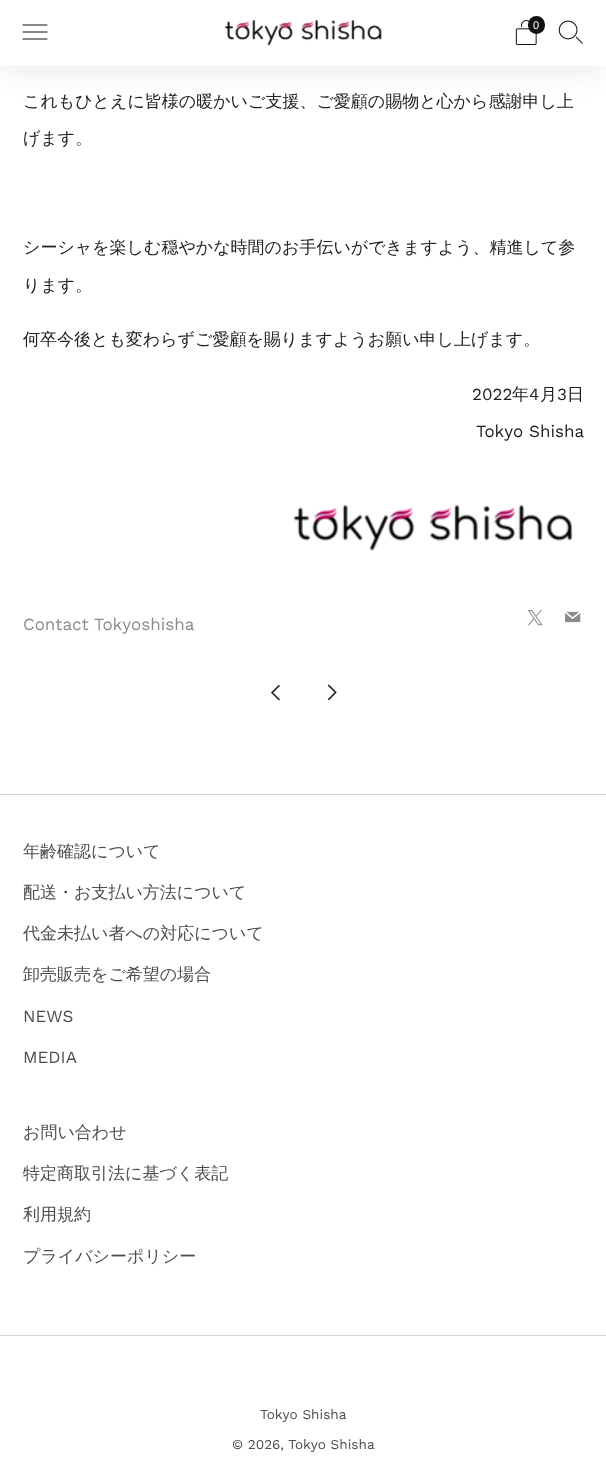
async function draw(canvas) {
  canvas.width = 606
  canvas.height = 1469
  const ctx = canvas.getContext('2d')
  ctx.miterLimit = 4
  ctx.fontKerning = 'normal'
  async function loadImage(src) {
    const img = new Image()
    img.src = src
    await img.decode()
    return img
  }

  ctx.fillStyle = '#fff'
  ctx.fillRect(0, 0, 606, 1469)
  ctx.fillStyle = '#00000014'
  ctx.filter = 'blur(15px)'
  ctx.beginPath()
  ctx.rect(0, 4, 606, 67)
  ctx.fill()
  ctx.filter = 'none'
  ctx.fillStyle = '#fff'
  ctx.fillRect(0, 0, 606, 66)
  ctx.beginPath()
  ctx.moveTo(23, 32)
  ctx.lineTo(47, 32)
  ctx.moveTo(23, 39)
  ctx.lineTo(47, 39)
  ctx.moveTo(23, 25)
  ctx.lineTo(47, 25)
  ctx.strokeStyle = '#111'
  ctx.lineCap = 'round'
  ctx.stroke()
  ctx.drawImage(await loadImage('image0.png'), 224, 20, 158, 26)
  ctx.drawImage(await loadImage('image1.png'), 515, 20, 22, 25)
  ctx.fillStyle = '#111'
  ctx.beginPath()
  ctx.roundRect(528, 16, 17, 18, 8.5)
  ctx.fill()
  ctx.font = '11px Liberation Sans'
  ctx.fillStyle = '#fff'
  ctx.fillText('0', 533, 29)
  ctx.drawImage(await loadImage('image2.png'), 558, 20, 25, 24)
  ctx.font = '500 17px WenQuanYi Zen Hei'
  ctx.fillStyle = '#212121'
  ctx.fillText('これもひとえに皆様の暖かいご支援、ご愛顧の賜物と心から感謝申し上', 23, 107)
  ctx.fillText('げます。', 23, 144)
  ctx.fillText('シーシャを楽しむ穏やかな時間のお手伝いができますよう、精進して参', 23, 253)
  ctx.fillText('ります。', 23, 291)
  ctx.fillText('何卒今後とも変わらずご愛顧を賜りますようお願い申し上げます。', 23, 345)
  ctx.font = '17px Work Sans'
  ctx.fillText('2022', 472, 400)
  ctx.font = '500 17px WenQuanYi Zen Hei'
  ctx.fillText('年', 512, 400)
  ctx.font = '17px Work Sans'
  ctx.fillText('4', 529, 400)
  ctx.font = '500 17px WenQuanYi Zen Hei'
  ctx.fillText('月', 540, 400)
  ctx.font = '17px Work Sans'
  ctx.fillText('3', 557, 400)
  ctx.font = '500 17px WenQuanYi Zen Hei'
  ctx.fillText('日', 567, 400)
  ctx.font = '17px Work Sans'
  ctx.fillText('Tokyo Shisha', 476, 437)
  ctx.drawImage(await loadImage('image3.png'), 293, 504, 280, 47)
  ctx.fillStyle = '#8b8b8b'
  ctx.fillText('Contact Tokyoshisha', 23, 630)
  ctx.drawImage(await loadImage('image4.png'), 527, 610, 16, 16)
  ctx.drawImage(await loadImage('image5.png'), 565, 611, 16, 12)
  ctx.drawImage(await loadImage('image6.png'), 271, 684, 9, 17)
  ctx.drawImage(await loadImage('image7.png'), 327, 684, 10, 17)
  ctx.fillStyle = '#d3d3d3'
  ctx.fillRect(0, 794, 606, 1)
  ctx.font = '500 17px WenQuanYi Zen Hei'
  ctx.fillStyle = '#4d4d4d'
  ctx.fillText('年齢確認について', 23, 857)
  ctx.fillText('配送・お支払い方法について', 23, 898)
  ctx.fillText('代金未払い者への対応について', 23, 939)
  ctx.fillText('卸売販売をご希望の場合', 23, 980)
  ctx.font = '17px Work Sans'
  ctx.fillText('NEWS', 23, 1022)
  ctx.fillText('MEDIA', 23, 1063)
  ctx.font = '500 17px WenQuanYi Zen Hei'
  ctx.fillText('お問い合わせ', 23, 1138)
  ctx.fillText('特定商取引法に基づく表記', 23, 1179)
  ctx.fillText('利用規約', 23, 1220)
  ctx.fillText('プライバシーポリシー', 23, 1262)
  ctx.fillStyle = '#d3d3d3'
  ctx.fillRect(0, 1335, 606, 1)
  ctx.font = '13.6px Work Sans'
  ctx.fillStyle = '#4d4d4d'
  ctx.fillText('Tokyo Shisha', 260, 1419)
  ctx.fillText('© 2026, Tokyo Shisha', 232, 1449)
}

draw(document.querySelector('canvas'))
